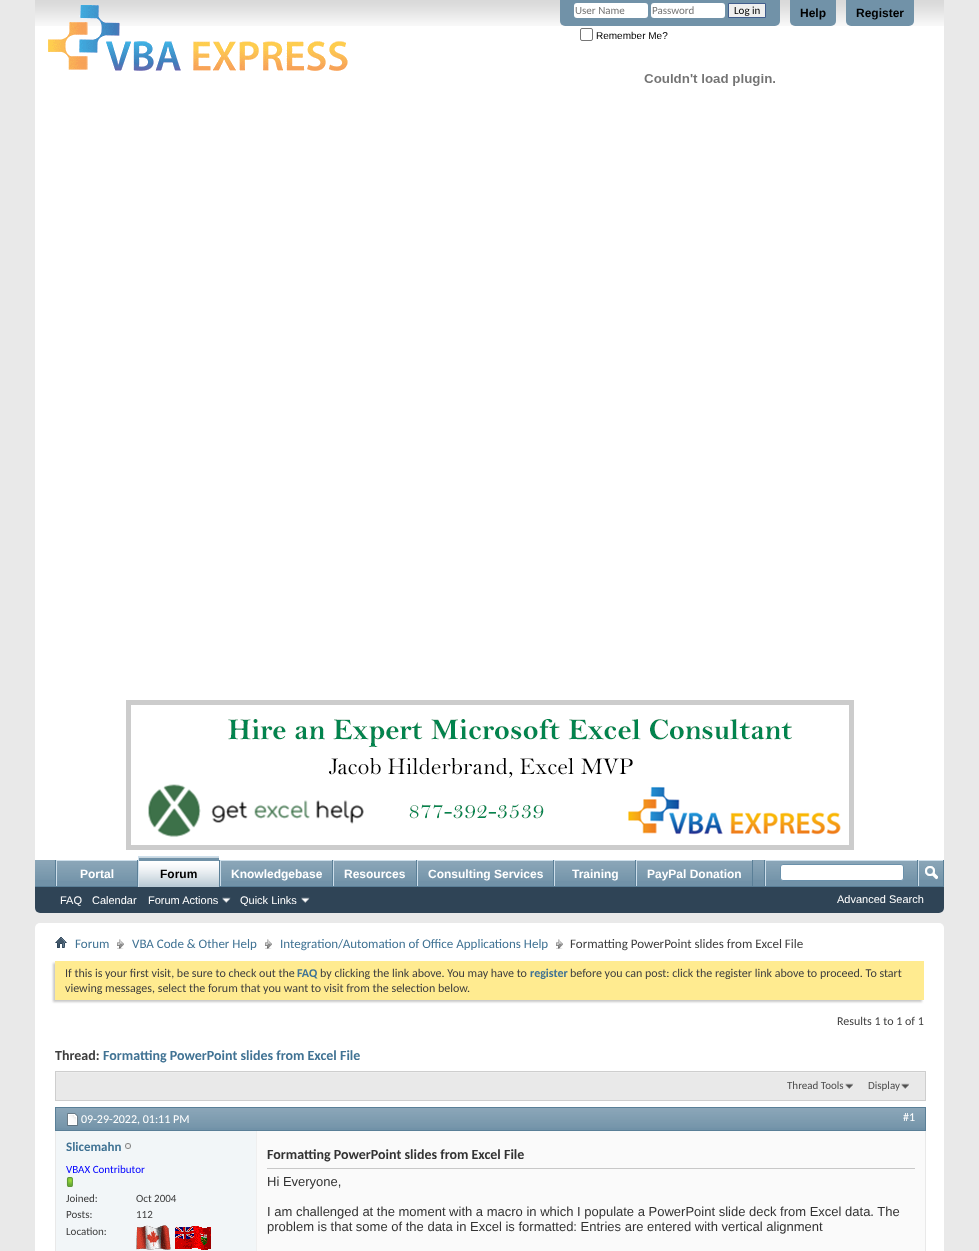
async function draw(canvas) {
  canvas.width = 979
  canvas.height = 1251
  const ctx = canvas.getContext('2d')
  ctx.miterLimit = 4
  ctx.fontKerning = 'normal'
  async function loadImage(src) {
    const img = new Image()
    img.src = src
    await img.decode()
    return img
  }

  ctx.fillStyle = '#e9e9e9'
  ctx.fillRect(0, 0, 979, 1251)
  ctx.fillStyle = '#fff'
  ctx.beginPath()
  ctx.roundRect(35, 0, 909, 913, [0, 0, 5, 5])
  ctx.fill()
  ctx.drawImage(await loadImage('image0.png'), 35, 0, 909, 26)
  ctx.drawImage(await loadImage('image1.png'), 48, 5, 300, 66)
  ctx.fillStyle = '#7192a8'
  ctx.beginPath()
  ctx.roundRect(560, 0, 220, 26, [0, 0, 5, 5])
  ctx.fill()
  ctx.fillStyle = '#fff'
  ctx.beginPath()
  ctx.roundRect(574, 3, 74, 15, 3)
  ctx.fill()
  ctx.font = '11px Carlito'
  ctx.fillStyle = '#777'
  ctx.fillText('User Name', 575, 14)
  ctx.fillStyle = '#fff'
  ctx.beginPath()
  ctx.roundRect(651, 3, 74, 15, 3)
  ctx.fill()
  ctx.fillStyle = '#777'
  ctx.fillText('Password', 652, 14)
  ctx.fillStyle = '#efefef'
  ctx.beginPath()
  ctx.rect(728.5, 3.5, 37, 14)
  ctx.fill()
  ctx.strokeStyle = '#415d8d'
  ctx.stroke()
  ctx.fillStyle = '#000'
  ctx.fillText('Log in', 734, 14)
  ctx.beginPath()
  ctx.roundRect(580.5, 28.5, 12, 12, 1.5)
  ctx.strokeStyle = '#767676'
  ctx.stroke()
  ctx.font = '10px Liberation Sans'
  ctx.fillText('Remember Me?', 596, 39)
  ctx.fillStyle = '#7192a8'
  ctx.beginPath()
  ctx.roundRect(790, 0, 46, 26, [0, 0, 5, 5])
  ctx.fill()
  ctx.font = 'bold 12px Liberation Sans'
  ctx.fillStyle = '#000'
  ctx.fillText('Help', 800, 17)
  ctx.fillStyle = '#7192a8'
  ctx.beginPath()
  ctx.roundRect(846, 0, 68, 26, [0, 0, 5, 5])
  ctx.fill()
  ctx.fillStyle = '#000'
  ctx.fillText('Register', 856, 17)
  ctx.drawImage(await loadImage('image2.png'), 644, 74, 131, 12)
  ctx.drawImage(await loadImage('image3.png'), 126, 700, 728, 150)
  ctx.fillStyle = '#2f4456'
  ctx.beginPath()
  ctx.roundRect(35, 860, 909, 53, [0, 0, 5, 5])
  ctx.fill()
  ctx.fillStyle = '#7192a8'
  ctx.fillRect(35, 860, 908, 26)
  ctx.drawImage(await loadImage('image4.png'), 35, 860, 908, 20)
  ctx.fillStyle = '#5a7f97'
  ctx.fillRect(137, 860, 1, 27)
  ctx.fillRect(55, 860, 1, 27)
  ctx.fillStyle = '#7192a8'
  ctx.fillRect(57, 861, 80, 19)
  ctx.drawImage(await loadImage('image5.png'), 57, 861, 80, 20)
  ctx.fillStyle = '#cedfeb'
  ctx.fillRect(56, 860, 81, 1)
  ctx.fillRect(56, 860, 1, 27)
  ctx.fillStyle = '#fff'
  ctx.fillText('Portal', 80, 878)
  ctx.fillStyle = '#5a7f97'
  ctx.fillRect(219, 860, 1, 26)
  ctx.fillRect(332, 860, 1, 27)
  ctx.fillStyle = '#cedfeb'
  ctx.fillRect(220, 860, 112, 1)
  ctx.fillRect(220, 860, 1, 27)
  ctx.fillStyle = '#5a7f97'
  ctx.fillRect(416, 860, 1, 27)
  ctx.fillStyle = '#cedfeb'
  ctx.fillRect(333, 860, 83, 1)
  ctx.fillRect(333, 860, 1, 27)
  ctx.fillStyle = '#5a7f97'
  ctx.fillRect(553, 860, 1, 27)
  ctx.fillStyle = '#cedfeb'
  ctx.fillRect(417, 860, 136, 1)
  ctx.fillRect(417, 860, 1, 27)
  ctx.fillStyle = '#5a7f97'
  ctx.fillRect(635, 860, 1, 27)
  ctx.fillStyle = '#cedfeb'
  ctx.fillRect(554, 860, 81, 1)
  ctx.fillRect(554, 860, 1, 27)
  ctx.fillStyle = '#5a7f97'
  ctx.fillRect(752, 860, 1, 27)
  ctx.fillStyle = '#cedfeb'
  ctx.fillRect(636, 860, 116, 1)
  ctx.fillRect(636, 860, 1, 27)
  ctx.fillStyle = '#5a7f97'
  ctx.fillRect(35, 886, 909, 1)
  ctx.fillStyle = '#7192a8'
  ctx.fillRect(139, 857, 80, 30)
  ctx.drawImage(await loadImage('image6.png'), 139, 857, 80, 30)
  ctx.fillStyle = '#cedfeb'
  ctx.fillRect(138, 856, 81, 1)
  ctx.fillRect(138, 856, 1, 31)
  ctx.fillStyle = '#000'
  ctx.fillText('Forum', 160, 878)
  ctx.fillStyle = '#7192a8'
  ctx.fillRect(221, 861, 111, 19)
  ctx.drawImage(await loadImage('image7.png'), 221, 861, 111, 20)
  ctx.fillStyle = '#fff'
  ctx.fillText('Knowledgebase', 231, 878)
  ctx.fillStyle = '#7192a8'
  ctx.fillRect(334, 861, 82, 19)
  ctx.drawImage(await loadImage('image8.png'), 334, 861, 82, 20)
  ctx.fillStyle = '#fff'
  ctx.fillText('Resources', 344, 878)
  ctx.fillStyle = '#7192a8'
  ctx.fillRect(418, 861, 135, 19)
  ctx.drawImage(await loadImage('image9.png'), 418, 861, 135, 20)
  ctx.fillStyle = '#fff'
  ctx.fillText('Consulting Services', 428, 878)
  ctx.fillStyle = '#7192a8'
  ctx.fillRect(555, 861, 80, 19)
  ctx.drawImage(await loadImage('image5.png'), 555, 861, 80, 20)
  ctx.fillStyle = '#fff'
  ctx.fillText('Training', 572, 878)
  ctx.fillStyle = '#7192a8'
  ctx.fillRect(637, 861, 115, 19)
  ctx.drawImage(await loadImage('image10.png'), 637, 861, 115, 20)
  ctx.fillStyle = '#fff'
  ctx.fillText('PayPal Donation', 647, 878)
  ctx.font = '11px Liberation Sans'
  ctx.fillText('FAQ', 60, 904)
  ctx.fillText('Calendar', 92, 904)
  ctx.fillText('Forum Actions', 148, 904)
  ctx.drawImage(await loadImage('image11.png'), 222, 897, 9, 6)
  ctx.fillText('Quick Links', 240, 904)
  ctx.drawImage(await loadImage('image11.png'), 301, 897, 9, 6)
  ctx.fillStyle = '#5a7f97'
  ctx.fillRect(764, 860, 1, 26)
  ctx.fillStyle = '#cedfeb'
  ctx.fillRect(765, 860, 152, 1)
  ctx.fillRect(765, 860, 1, 26)
  ctx.fillStyle = '#fff'
  ctx.beginPath()
  ctx.roundRect(780.5, 864.5, 123, 16, 2.5)
  ctx.fill()
  ctx.strokeStyle = '#6b91ab'
  ctx.stroke()
  ctx.fillStyle = '#5a7f97'
  ctx.fillRect(943, 860, 1, 26)
  ctx.fillRect(917, 860, 1, 26)
  ctx.fillStyle = '#cedfeb'
  ctx.fillRect(918, 860, 25, 1)
  ctx.fillRect(918, 860, 1, 26)
  ctx.drawImage(await loadImage('image12.png'), 925, 866, 13, 14)
  ctx.fillStyle = '#fff'
  ctx.fillText('Advanced Search', 837, 903)
  ctx.beginPath()
  ctx.roundRect(35, 923, 909, 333, 5)
  ctx.fill()
  ctx.drawImage(await loadImage('image13.png'), 55, 937, 12, 11)
  ctx.drawImage(await loadImage('image14.png'), 117, 939, 7, 10)
  ctx.font = '13px Carlito'
  ctx.fillStyle = '#417394'
  ctx.fillText('Forum', 75, 948)
  ctx.drawImage(await loadImage('image14.png'), 265, 939, 7, 10)
  ctx.fillText('VBA Code & Other Help', 132, 948)
  ctx.drawImage(await loadImage('image14.png'), 556, 939, 7, 10)
  ctx.fillText('Integration/Automation of Office Applications Help', 280, 948)
  ctx.fillStyle = '#3e3e3e'
  ctx.fillText('Formatting PowerPoint slides from Excel File', 570, 948)
  ctx.fillStyle = '#c8c8c8'
  ctx.filter = 'blur(1px)'
  ctx.beginPath()
  ctx.rect(53, 963, 869, 39)
  ctx.fill()
  ctx.filter = 'none'
  ctx.fillStyle = '#ffeb90'
  ctx.fillRect(55, 961, 869, 39)
  ctx.font = '12px Carlito'
  ctx.fillStyle = '#3e3e3e'
  ctx.fillText('If this is your first visit, be sure to check out the', 65, 977)
  ctx.font = 'bold 12px Carlito'
  ctx.fillStyle = '#417394'
  ctx.fillText('FAQ', 297, 977)
  ctx.font = '12px Carlito'
  ctx.fillStyle = '#3e3e3e'
  ctx.fillText('by clicking the link above. You may have to', 320, 977)
  ctx.font = 'bold 12px Carlito'
  ctx.fillStyle = '#417394'
  ctx.fillText('register', 530, 977)
  ctx.font = '12px Carlito'
  ctx.fillStyle = '#3e3e3e'
  ctx.fillText('before you can post: click the register link above to proceed. To start', 570, 977)
  ctx.fillText('viewing messages, select the forum that you want to visit from the selection below.', 65, 992)
  ctx.fillText('Results 1 to 1 of 1', 837, 1025)
  ctx.font = 'bold 14px Carlito'
  ctx.fillText('Thread:', 55, 1060)
  ctx.fillStyle = '#417394'
  ctx.fillText('Formatting PowerPoint slides from Excel File', 103, 1060)
  ctx.fillStyle = '#e9e9e9'
  ctx.fillRect(56, 1073, 869, 27)
  ctx.fillStyle = '#ededed'
  ctx.fillRect(55, 1072, 871, 1)
  ctx.strokeStyle = '#cecece'
  ctx.strokeRect(55.5, 1071.5, 870, 29)
  ctx.drawImage(await loadImage('image15.png'), 845, 1083, 9, 7)
  ctx.font = '11px Carlito'
  ctx.fillStyle = '#4e4e4e'
  ctx.fillText('Thread Tools', 787, 1089)
  ctx.drawImage(await loadImage('image15.png'), 901, 1083, 9, 7)
  ctx.fillText('Display', 868, 1089)
  ctx.strokeStyle = '#e9e9e9'
  ctx.strokeRect(55.5, 1107.5, 870, 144)
  ctx.fillStyle = '#7192a8'
  ctx.fillRect(56, 1108, 869, 22)
  ctx.drawImage(await loadImage('image16.png'), 56, 1108, 869, 20)
  ctx.strokeStyle = '#5a7f97'
  ctx.strokeRect(55.5, 1107.5, 870, 23)
  ctx.drawImage(await loadImage('image17.png'), 67, 1113, 11, 13)
  ctx.font = '12px Carlito'
  ctx.fillStyle = '#fff'
  ctx.fillText('09-29-2022, 01:11 PM', 81, 1123)
  ctx.fillText('#1', 903, 1121)
  ctx.fillStyle = '#f2f6f8'
  ctx.fillRect(56, 1131, 200, 120)
  ctx.font = 'bold 13px Carlito'
  ctx.fillStyle = '#417394'
  ctx.fillText('Slicemahn', 66, 1151)
  ctx.drawImage(await loadImage('image18.png'), 125, 1143, 6, 6)
  ctx.font = '11px Carlito'
  ctx.fillStyle = '#00f'
  ctx.fillText('VBAX Contributor', 66, 1173)
  ctx.drawImage(await loadImage('image19.png'), 66, 1177, 7, 10)
  ctx.fillStyle = '#3e3e3e'
  ctx.fillText('Joined:', 66, 1202)
  ctx.fillText('Oct 2004', 136, 1202)
  ctx.fillText('Posts:', 66, 1218)
  ctx.fillText('112', 136, 1218)
  ctx.fillText('Location:', 66, 1235)
  ctx.drawImage(await loadImage('image20.png'), 136, 1225, 35, 25)
  ctx.drawImage(await loadImage('image21.png'), 175, 1226, 36, 24)
  ctx.fillStyle = '#fafafa'
  ctx.fillRect(257, 1131, 668, 120)
  ctx.fillStyle = '#efefef'
  ctx.fillRect(256, 1131, 1, 120)
  ctx.fillStyle = '#c8c8c8'
  ctx.fillRect(267, 1168, 648, 1)
  ctx.font = 'bold 14px Carlito'
  ctx.fillStyle = '#333'
  ctx.fillText('Formatting PowerPoint slides from Excel File', 267, 1159)
  ctx.font = '13px Liberation Sans'
  ctx.fillText('Hi Everyone,', 267, 1186)
  ctx.fillText('I am challenged at the moment with a macro in which I populate a PowerPoint slide deck from Excel data. The', 267, 1216)
  ctx.fillText('problem is that some of the data in Excel is formatted: Entries are entered with vertical alignment', 267, 1231)
}

draw(document.querySelector('canvas'))
